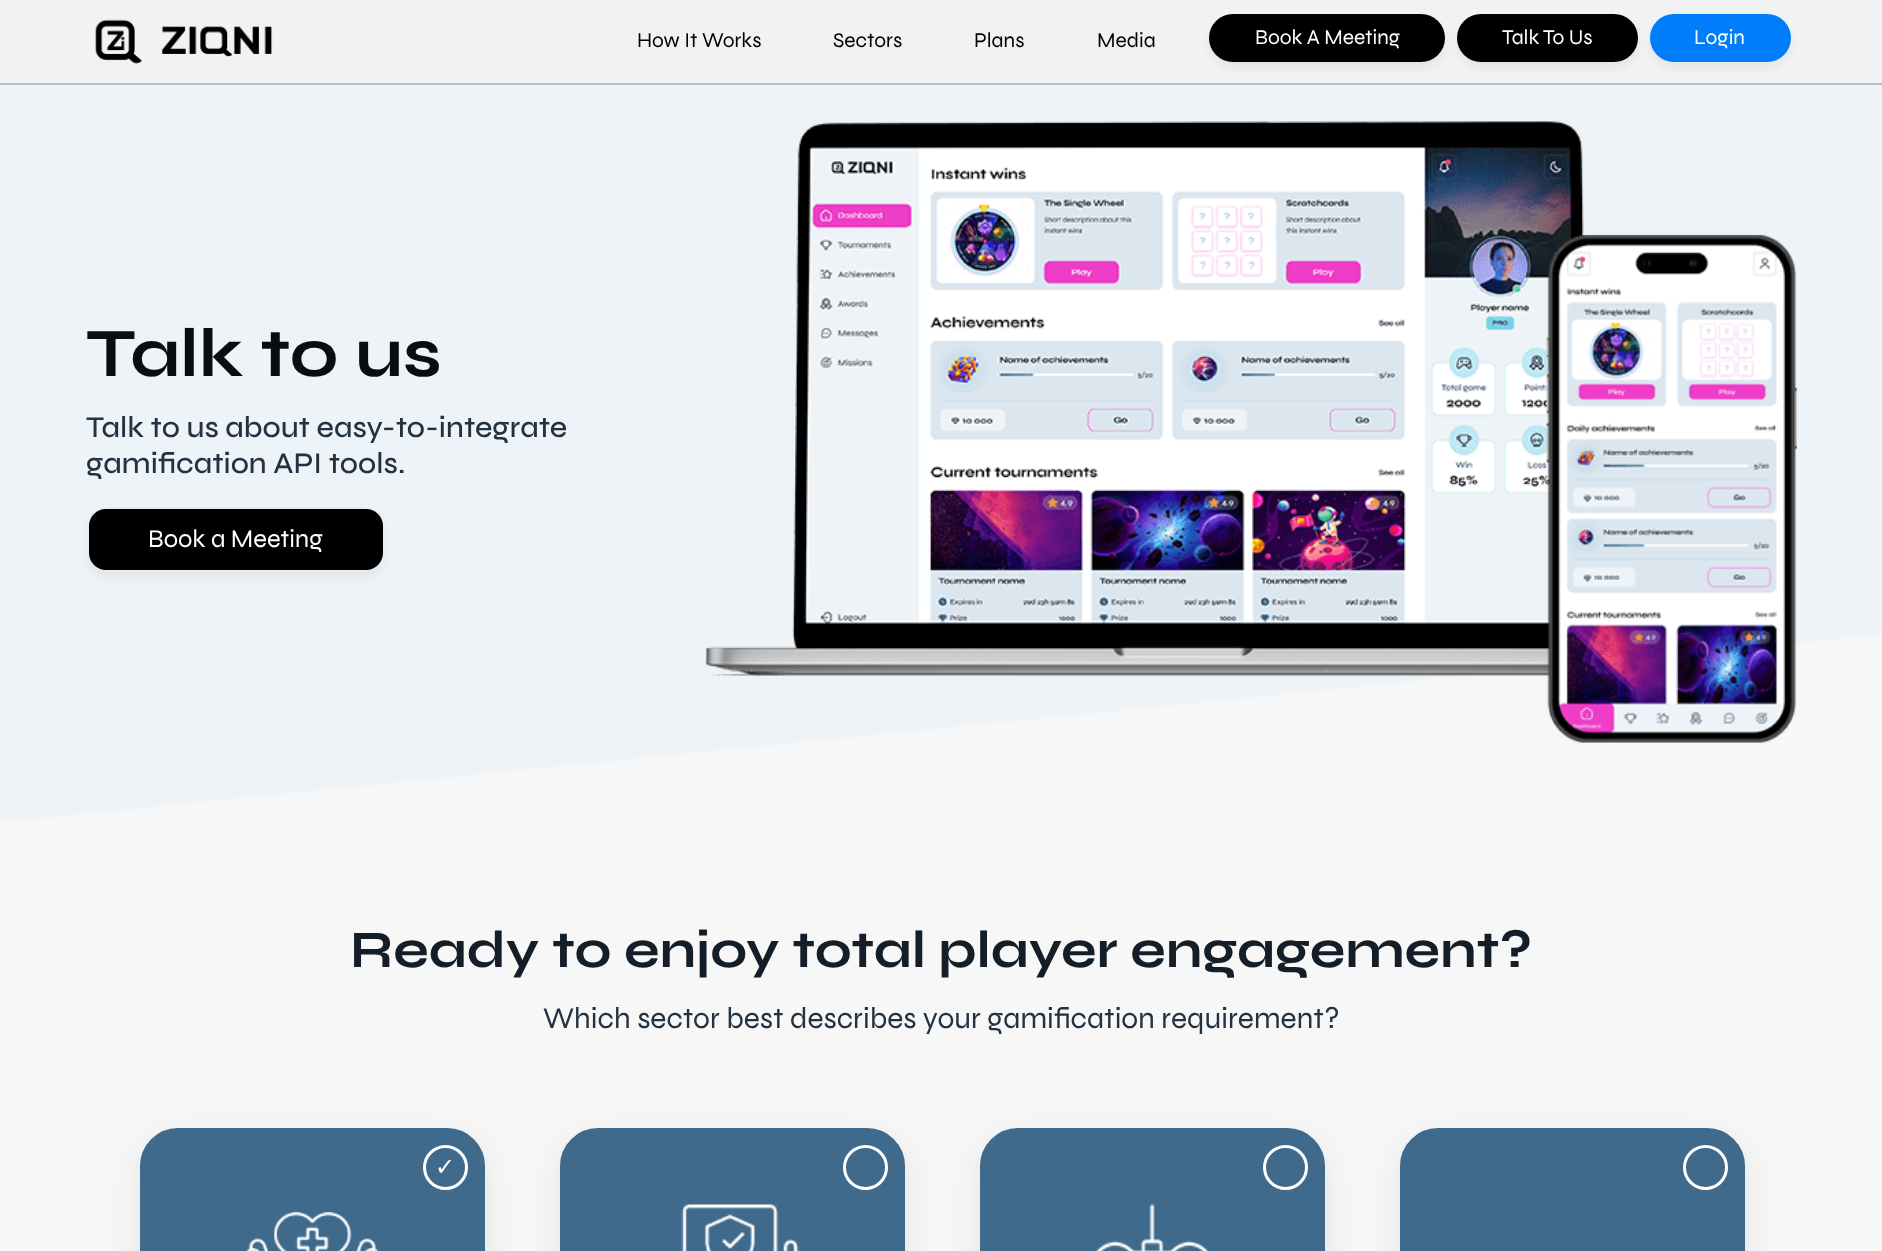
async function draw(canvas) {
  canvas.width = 1882
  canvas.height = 1251
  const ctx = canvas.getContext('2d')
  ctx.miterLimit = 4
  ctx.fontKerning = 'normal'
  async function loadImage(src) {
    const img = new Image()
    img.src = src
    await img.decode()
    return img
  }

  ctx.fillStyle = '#f7f7f7'
  ctx.fillRect(0, 0, 1882, 1251)
  ctx.fillStyle = '#f1f2f4'
  ctx.fillRect(0, 0, 1882, 83)
  ctx.fillStyle = '#bebebf'
  ctx.fillRect(0, 83, 1882, 2)
  ctx.drawImage(await loadImage('image0.png'), 95, 19, 178, 45)
  ctx.font = '21px Syne'
  ctx.fillStyle = '#000'
  ctx.fillText('How It Works', 637, 47)
  ctx.fillText('Sectors', 833, 47)
  ctx.fillText('Plans', 974, 47)
  ctx.fillText('Media', 1097, 47)
  ctx.fillStyle = '#0000000d'
  ctx.filter = 'blur(4.5px)'
  ctx.beginPath()
  ctx.roundRect(1209, 20, 236, 48, 24)
  ctx.fill()
  ctx.filter = 'none'
  ctx.fillStyle = '#000'
  ctx.beginPath()
  ctx.roundRect(1209, 14, 236, 48, 24)
  ctx.fill()
  ctx.fillStyle = '#fff'
  ctx.fillText('Book A Meeting', 1255, 44)
  ctx.fillStyle = '#0000000d'
  ctx.filter = 'blur(4.5px)'
  ctx.beginPath()
  ctx.roundRect(1457, 20, 181, 48, 24)
  ctx.fill()
  ctx.filter = 'none'
  ctx.fillStyle = '#000'
  ctx.beginPath()
  ctx.roundRect(1457, 14, 181, 48, 24)
  ctx.fill()
  ctx.fillStyle = '#fff'
  ctx.fillText('Talk To Us', 1502, 44)
  ctx.fillStyle = '#0000000d'
  ctx.filter = 'blur(4.5px)'
  ctx.beginPath()
  ctx.roundRect(1650, 20, 141, 48, 24)
  ctx.fill()
  ctx.filter = 'none'
  ctx.fillStyle = '#007dfb'
  ctx.beginPath()
  ctx.roundRect(1650, 14, 141, 48, 24)
  ctx.fill()
  ctx.fillStyle = '#fff'
  ctx.fillText('Login', 1694, 44)
  ctx.drawImage(await loadImage('image1.png'), 0, 85, 1882, 737)
  ctx.font = 'bold 69px Syne'
  ctx.fillStyle = '#080d12'
  ctx.fillText('Talk to us', 86, 376)
  ctx.font = '500 30px Syne'
  ctx.fillStyle = '#223241'
  ctx.fillText('Talk to us about easy-to-integrate', 86, 437)
  ctx.fillText('gamification API tools.', 86, 473)
  ctx.fillStyle = '#0000000d'
  ctx.filter = 'blur(4.5px)'
  ctx.beginPath()
  ctx.roundRect(87, 513, 297, 65, 21)
  ctx.fill()
  ctx.filter = 'none'
  ctx.beginPath()
  ctx.roundRect(88, 508, 295, 63, 20)
  ctx.strokeStyle = '#ebebeb'
  ctx.lineWidth = 2
  ctx.stroke()
  ctx.fillStyle = '#000'
  ctx.beginPath()
  ctx.roundRect(89, 509, 294, 61, 17)
  ctx.fill()
  ctx.font = '25.5px Syne'
  ctx.fillStyle = '#fff'
  ctx.fillText('Book a Meeting', 148, 547)
  ctx.drawImage(await loadImage('image2.png'), 705, 121, 1092, 622)
  ctx.font = 'bold 52.5px Syne'
  ctx.fillStyle = '#141e28'
  ctx.fillText('Ready to enjoy total player engagement?', 350, 967)
  ctx.font = '30px Syne'
  ctx.fillStyle = '#223241'
  ctx.fillText('Which sector best describes your gamification requirement?', 543, 1028)
  ctx.fillStyle = '#959da533'
  ctx.filter = 'blur(18px)'
  ctx.beginPath()
  ctx.roundRect(140, 1140, 345, 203, 38)
  ctx.fill()
  ctx.filter = 'none'
  ctx.fillStyle = '#406a8c'
  ctx.beginPath()
  ctx.roundRect(141, 1129, 343, 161, 37)
  ctx.fill()
  ctx.strokeStyle = '#406a8c'
  ctx.stroke()
  ctx.beginPath()
  ctx.arc(445.5, 1167.5, 21, 0, 2 * Math.PI)
  ctx.strokeStyle = '#fff'
  ctx.lineWidth = 3
  ctx.stroke()
  ctx.font = '24px DejaVu Sans'
  ctx.fillStyle = '#fff'
  ctx.fillText('✓', 435, 1175)
  ctx.drawImage(await loadImage('image3.png'), 246, 1212, 133, 39)
  ctx.fillStyle = '#959da533'
  ctx.filter = 'blur(18px)'
  ctx.beginPath()
  ctx.roundRect(560, 1140, 345, 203, 38)
  ctx.fill()
  ctx.filter = 'none'
  ctx.fillStyle = '#406a8c'
  ctx.beginPath()
  ctx.roundRect(561, 1129, 343, 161, 37)
  ctx.fill()
  ctx.strokeStyle = '#406a8c'
  ctx.lineWidth = 2
  ctx.stroke()
  ctx.beginPath()
  ctx.arc(865.5, 1167.5, 21, 0, 2 * Math.PI)
  ctx.strokeStyle = '#fff'
  ctx.lineWidth = 3
  ctx.stroke()
  ctx.drawImage(await loadImage('image4.png'), 681, 1204, 118, 47)
  ctx.fillStyle = '#959da533'
  ctx.filter = 'blur(18px)'
  ctx.beginPath()
  ctx.roundRect(980, 1140, 345, 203, 38)
  ctx.fill()
  ctx.filter = 'none'
  ctx.fillStyle = '#406a8c'
  ctx.beginPath()
  ctx.roundRect(981, 1129, 343, 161, 37)
  ctx.fill()
  ctx.strokeStyle = '#406a8c'
  ctx.lineWidth = 2
  ctx.stroke()
  ctx.beginPath()
  ctx.arc(1285.5, 1167.5, 21, 0, 2 * Math.PI)
  ctx.strokeStyle = '#fff'
  ctx.lineWidth = 3
  ctx.stroke()
  ctx.drawImage(await loadImage('image5.png'), 1095, 1204, 114, 47)
  ctx.fillStyle = '#959da533'
  ctx.filter = 'blur(18px)'
  ctx.beginPath()
  ctx.roundRect(1400, 1140, 345, 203, 38)
  ctx.fill()
  ctx.filter = 'none'
  ctx.fillStyle = '#406a8c'
  ctx.beginPath()
  ctx.roundRect(1401, 1129, 343, 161, 37)
  ctx.fill()
  ctx.strokeStyle = '#406a8c'
  ctx.lineWidth = 2
  ctx.stroke()
  ctx.beginPath()
  ctx.arc(1705.5, 1167.5, 21, 0, 2 * Math.PI)
  ctx.strokeStyle = '#fff'
  ctx.lineWidth = 3
  ctx.stroke()
}

draw(document.querySelector('canvas'))
